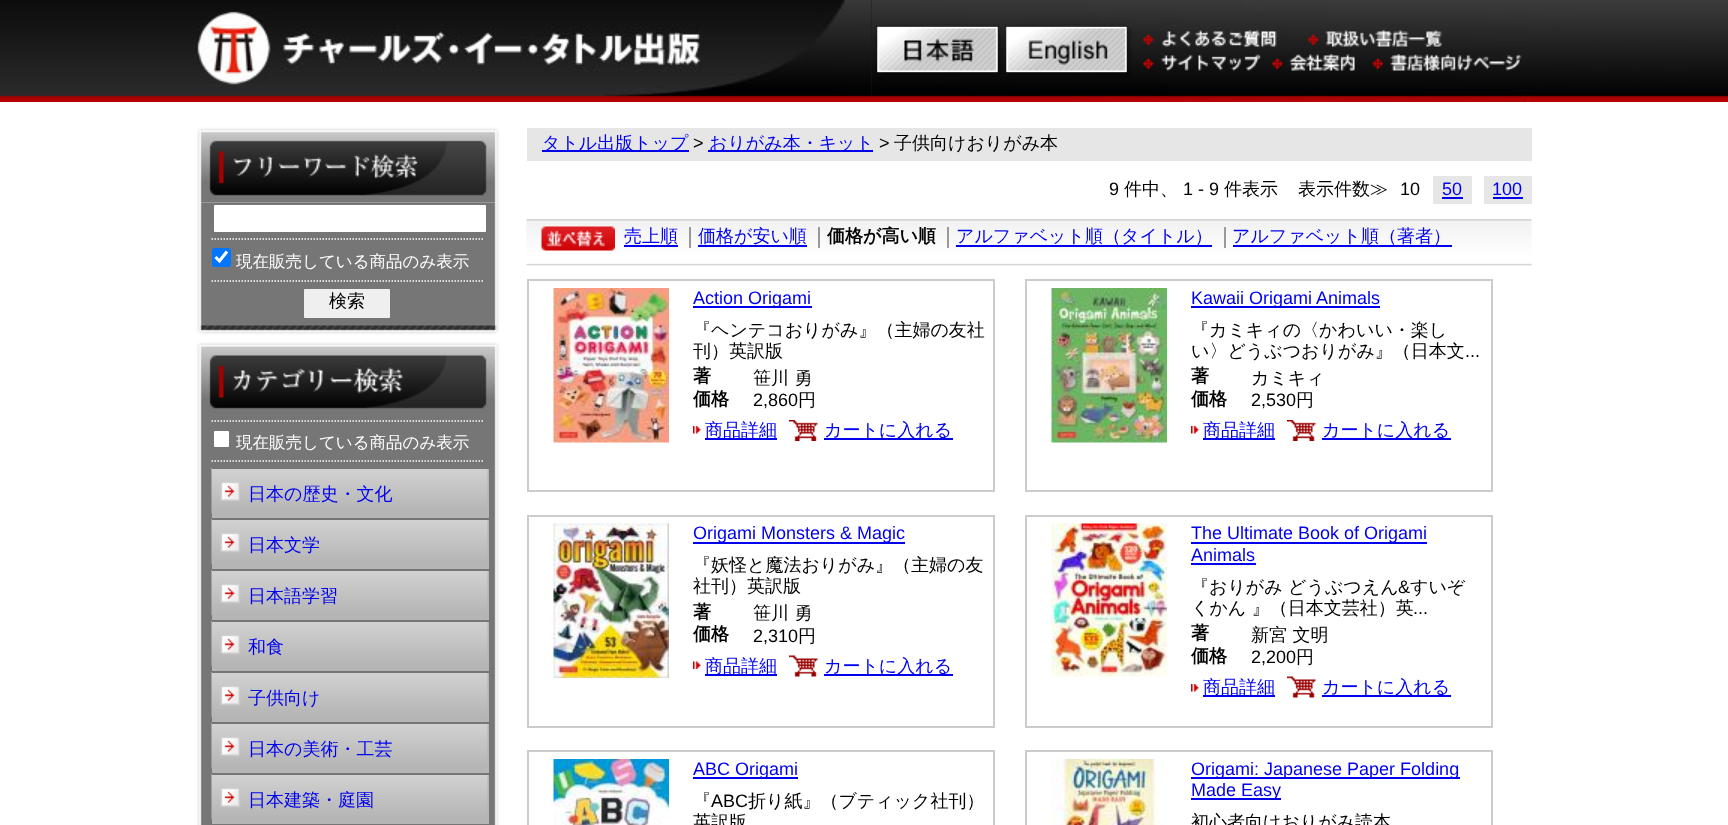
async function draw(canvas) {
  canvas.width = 1728
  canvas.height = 825
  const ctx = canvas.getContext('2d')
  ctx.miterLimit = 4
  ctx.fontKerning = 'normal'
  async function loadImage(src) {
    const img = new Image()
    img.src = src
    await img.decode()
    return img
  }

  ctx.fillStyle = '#fff'
  ctx.fillRect(0, 0, 1728, 825)
  ctx.drawImage(await loadImage('image0.png'), 0, 0, 1728, 102)
  ctx.drawImage(await loadImage('image1.png'), 197, 0, 675, 97)
  ctx.drawImage(await loadImage('image2.png'), 871, 0, 660, 102)
  ctx.drawImage(await loadImage('image3.png'), 877, 27, 121, 45)
  ctx.drawImage(await loadImage('image4.png'), 1006, 27, 121, 45)
  ctx.drawImage(await loadImage('image5.png'), 1143, 30, 134, 17)
  ctx.drawImage(await loadImage('image6.png'), 1308, 30, 134, 17)
  ctx.drawImage(await loadImage('image7.png'), 1143, 54, 118, 17)
  ctx.drawImage(await loadImage('image8.png'), 1272, 54, 83, 17)
  ctx.drawImage(await loadImage('image9.png'), 1372, 54, 150, 17)
  ctx.drawImage(await loadImage('image11.png'), 196, 202, 304, 133)
  ctx.drawImage(await loadImage('image10.png'), 196, 127, 304, 76)
  ctx.beginPath()
  ctx.roundRect(213, 204, 274, 29, 2)
  ctx.fill()
  ctx.strokeStyle = '#767676'
  ctx.lineWidth = 2
  ctx.stroke()
  ctx.beginPath()
  ctx.moveTo(211.5, 239)
  ctx.lineTo(484.5, 239)
  ctx.strokeStyle = '#fff'
  ctx.lineWidth = 1.5
  ctx.setLineDash([1.5, 1.5])
  ctx.stroke()
  ctx.beginPath()
  ctx.moveTo(211.5, 281)
  ctx.lineTo(484.5, 281)
  ctx.stroke()
  ctx.fillStyle = '#0075ff'
  ctx.beginPath()
  ctx.roundRect(212, 248, 19, 19, 3)
  ctx.fill()
  ctx.beginPath()
  ctx.moveTo(215.5, 257)
  ctx.lineTo(219.5, 261)
  ctx.lineTo(227, 251.5)
  ctx.lineWidth = 3.1
  ctx.setLineDash([])
  ctx.stroke()
  ctx.font = '500 16.5px WenQuanYi Zen Hei'
  ctx.fillStyle = '#fff'
  ctx.fillText('現在販売している商品のみ表示', 236, 267)
  ctx.fillStyle = '#efefef'
  ctx.beginPath()
  ctx.roundRect(303, 288, 88, 31, 2)
  ctx.fill()
  ctx.strokeStyle = '#767676'
  ctx.lineWidth = 2
  ctx.stroke()
  ctx.font = '500 18px WenQuanYi Zen Hei'
  ctx.fillStyle = '#000'
  ctx.fillText('検索', 329, 307)
  ctx.drawImage(await loadImage('image12.png'), 196, 342, 304, 75)
  ctx.drawImage(await loadImage('image13.png'), 196, 417, 304, 408)
  ctx.beginPath()
  ctx.moveTo(211.5, 421)
  ctx.lineTo(484.5, 421)
  ctx.strokeStyle = '#fff'
  ctx.lineWidth = 1.5
  ctx.setLineDash([1.5, 1.5])
  ctx.stroke()
  ctx.beginPath()
  ctx.moveTo(211.5, 461)
  ctx.lineTo(484.5, 461)
  ctx.stroke()
  ctx.fillStyle = '#fff'
  ctx.beginPath()
  ctx.roundRect(213, 430, 17, 18, 2)
  ctx.fill()
  ctx.strokeStyle = '#767676'
  ctx.lineWidth = 2
  ctx.setLineDash([])
  ctx.stroke()
  ctx.font = '500 16.5px WenQuanYi Zen Hei'
  ctx.fillText('現在販売している商品のみ表示', 236, 448)
  ctx.fillStyle = '#b5b5b5'
  ctx.fillRect(212, 469, 277, 49)
  ctx.drawImage(await loadImage('image14.png'), 211, 468, 277, 45)
  ctx.fillStyle = '#767676'
  ctx.fillRect(212, 468, 277, 1)
  ctx.font = '500 18px WenQuanYi Zen Hei'
  ctx.fillStyle = '#00e'
  ctx.fillText('日本の歴史・文化', 248, 500)
  ctx.fillStyle = '#b5b5b5'
  ctx.fillRect(212, 520, 277, 49)
  ctx.drawImage(await loadImage('image14.png'), 211, 519, 277, 45)
  ctx.fillStyle = '#767676'
  ctx.fillRect(212, 519, 277, 1)
  ctx.fillStyle = '#00e'
  ctx.fillText('日本文学', 248, 551)
  ctx.fillStyle = '#b5b5b5'
  ctx.fillRect(212, 571, 277, 49)
  ctx.drawImage(await loadImage('image14.png'), 211, 570, 277, 45)
  ctx.fillStyle = '#767676'
  ctx.fillRect(212, 570, 277, 1)
  ctx.fillStyle = '#00e'
  ctx.fillText('日本語学習', 248, 602)
  ctx.fillStyle = '#b5b5b5'
  ctx.fillRect(212, 622, 277, 49)
  ctx.drawImage(await loadImage('image14.png'), 211, 621, 277, 45)
  ctx.fillStyle = '#767676'
  ctx.fillRect(212, 621, 277, 1)
  ctx.fillStyle = '#00e'
  ctx.fillText('和食', 248, 653)
  ctx.fillStyle = '#b5b5b5'
  ctx.fillRect(212, 673, 277, 49)
  ctx.drawImage(await loadImage('image14.png'), 211, 672, 277, 45)
  ctx.fillStyle = '#767676'
  ctx.fillRect(212, 672, 277, 1)
  ctx.fillStyle = '#00e'
  ctx.fillText('子供向け', 248, 704)
  ctx.fillStyle = '#b5b5b5'
  ctx.fillRect(212, 724, 277, 49)
  ctx.drawImage(await loadImage('image14.png'), 211, 723, 277, 45)
  ctx.fillStyle = '#767676'
  ctx.fillRect(212, 723, 277, 1)
  ctx.fillStyle = '#00e'
  ctx.fillText('日本の美術・工芸', 248, 755)
  ctx.fillStyle = '#b5b5b5'
  ctx.fillRect(212, 775, 277, 49)
  ctx.drawImage(await loadImage('image14.png'), 211, 774, 277, 45)
  ctx.fillStyle = '#767676'
  ctx.fillRect(212, 774, 277, 1)
  ctx.fillStyle = '#00e'
  ctx.fillText('日本建築・庭園', 248, 806)
  ctx.fillStyle = '#e6e6e6'
  ctx.fillRect(527, 128, 1005, 33)
  ctx.fillStyle = '#00e'
  ctx.fillRect(542, 150, 147, 2)
  ctx.fillText('タトル出版トップ', 542, 149)
  ctx.font = '18px Liberation Sans'
  ctx.fillStyle = '#000'
  ctx.fillText('>', 693, 149)
  ctx.fillStyle = '#00e'
  ctx.fillRect(708, 150, 165, 2)
  ctx.font = '500 18px WenQuanYi Zen Hei'
  ctx.fillText('おりがみ本・キット', 709, 149)
  ctx.font = '18px Liberation Sans'
  ctx.fillStyle = '#000'
  ctx.fillText('>', 879, 149)
  ctx.font = '500 18px WenQuanYi Zen Hei'
  ctx.fillText('子供向けおりがみ本', 894, 149)
  ctx.font = '18px Liberation Sans'
  ctx.fillText('9', 1109, 195)
  ctx.font = '500 18px WenQuanYi Zen Hei'
  ctx.fillText('件中、', 1124, 195)
  ctx.font = '18px Liberation Sans'
  ctx.fillText('1 - 9', 1183, 195)
  ctx.font = '500 18px WenQuanYi Zen Hei'
  ctx.fillText('件表示', 1224, 195)
  ctx.fillText('表示件数≫', 1298, 195)
  ctx.font = '18px Liberation Sans'
  ctx.fillText('10', 1400, 195)
  ctx.fillStyle = '#e6e6e6'
  ctx.fillRect(1433, 176, 39, 28)
  ctx.fillStyle = '#00e'
  ctx.fillText('50', 1442, 195)
  ctx.fillRect(1442, 197, 21, 2)
  ctx.fillStyle = '#e6e6e6'
  ctx.fillRect(1484, 176, 48, 28)
  ctx.fillStyle = '#00e'
  ctx.fillText('100', 1492, 195)
  ctx.fillRect(1493, 197, 30, 2)
  ctx.drawImage(await loadImage('image15.png'), 526, 219, 1006, 47)
  ctx.drawImage(await loadImage('image16.png'), 541, 226, 74, 25)
  ctx.font = '500 18px WenQuanYi Zen Hei'
  ctx.fillText('売上順', 624, 242)
  ctx.fillRect(624, 245, 54, 2)
  ctx.fillText('価格が安い順', 698, 242)
  ctx.fillStyle = '#999'
  ctx.fillRect(689, 227, 2, 21)
  ctx.fillStyle = '#00e'
  ctx.fillRect(698, 245, 109, 2)
  ctx.font = 'bold 18px WenQuanYi Zen Hei'
  ctx.fillStyle = '#000'
  ctx.fillText('価格が高い順', 827, 242)
  ctx.fillStyle = '#999'
  ctx.fillRect(818, 227, 2, 21)
  ctx.fillStyle = '#00e'
  ctx.fillRect(956, 245, 256, 2)
  ctx.font = '500 18px WenQuanYi Zen Hei'
  ctx.fillText('アルファベット順（タイトル）', 956, 242)
  ctx.fillStyle = '#999'
  ctx.fillRect(947, 227, 2, 21)
  ctx.fillStyle = '#00e'
  ctx.fillRect(1233, 245, 219, 2)
  ctx.fillText('アルファベット順（著者）', 1232, 242)
  ctx.fillStyle = '#999'
  ctx.fillRect(1224, 227, 2, 21)
  ctx.strokeStyle = '#ccc'
  ctx.strokeRect(528, 280, 466, 211)
  ctx.drawImage(await loadImage('image17.png'), 553, 288, 116, 155)
  ctx.fillStyle = '#00e'
  ctx.fillRect(693, 306, 119, 2)
  ctx.font = '18px Liberation Sans'
  ctx.fillText('Action Origami', 693, 304)
  ctx.font = '500 18px WenQuanYi Zen Hei'
  ctx.fillStyle = '#000'
  ctx.fillText('『ヘンテコおりがみ』（主婦の友社', 693, 336)
  ctx.fillText('刊）英訳版', 693, 357)
  ctx.font = 'bold 18px WenQuanYi Zen Hei'
  ctx.fillText('著', 693, 382)
  ctx.font = '500 18px WenQuanYi Zen Hei'
  ctx.fillText('笹川 勇', 753, 384)
  ctx.font = 'bold 18px WenQuanYi Zen Hei'
  ctx.fillText('価格', 693, 405)
  ctx.font = '18px Liberation Sans'
  ctx.fillText('2,860', 753, 406)
  ctx.font = '500 18px WenQuanYi Zen Hei'
  ctx.fillText('円', 798, 406)
  ctx.drawImage(await loadImage('image18.png'), 693, 426, 8, 8)
  ctx.fillStyle = '#00e'
  ctx.fillRect(705, 438, 72, 2)
  ctx.fillText('商品詳細', 705, 436)
  ctx.drawImage(await loadImage('image19.png'), 789, 420, 29, 21)
  ctx.fillRect(824, 438, 129, 2)
  ctx.fillText('カートに入れる', 824, 436)
  ctx.strokeRect(1026, 280, 466, 211)
  ctx.drawImage(await loadImage('image20.png'), 1051, 288, 116, 155)
  ctx.fillRect(1191, 306, 189, 2)
  ctx.font = '18px Liberation Sans'
  ctx.fillText('Kawaii Origami Animals', 1191, 304)
  ctx.font = '500 18px WenQuanYi Zen Hei'
  ctx.fillStyle = '#000'
  ctx.fillText('『カミキィの〈かわいい・楽し', 1191, 336)
  ctx.fillText('い〉どうぶつおりがみ』（日本文', 1191, 357)
  ctx.font = '18px Liberation Sans'
  ctx.fillText('...', 1465, 357)
  ctx.font = 'bold 18px WenQuanYi Zen Hei'
  ctx.fillText('著', 1191, 382)
  ctx.font = '500 18px WenQuanYi Zen Hei'
  ctx.fillText('カミキィ', 1251, 384)
  ctx.font = 'bold 18px WenQuanYi Zen Hei'
  ctx.fillText('価格', 1191, 405)
  ctx.font = '18px Liberation Sans'
  ctx.fillText('2,530', 1251, 406)
  ctx.font = '500 18px WenQuanYi Zen Hei'
  ctx.fillText('円', 1296, 406)
  ctx.drawImage(await loadImage('image21.png'), 1191, 426, 8, 8)
  ctx.fillStyle = '#00e'
  ctx.fillRect(1203, 438, 72, 2)
  ctx.fillText('商品詳細', 1203, 436)
  ctx.drawImage(await loadImage('image22.png'), 1287, 420, 29, 21)
  ctx.fillRect(1322, 438, 129, 2)
  ctx.fillText('カートに入れる', 1322, 436)
  ctx.strokeRect(528, 516, 466, 211)
  ctx.drawImage(await loadImage('image23.png'), 553, 523, 116, 155)
  ctx.fillRect(693, 542, 212, 2)
  ctx.font = '18px Liberation Sans'
  ctx.fillText('Origami Monsters & Magic', 693, 539)
  ctx.font = '500 18px WenQuanYi Zen Hei'
  ctx.fillStyle = '#000'
  ctx.fillText('『妖怪と魔法おりがみ』（主婦の友', 693, 571)
  ctx.fillText('社刊）英訳版', 693, 592)
  ctx.font = 'bold 18px WenQuanYi Zen Hei'
  ctx.fillText('著', 693, 618)
  ctx.font = '500 18px WenQuanYi Zen Hei'
  ctx.fillText('笹川 勇', 753, 619)
  ctx.font = 'bold 18px WenQuanYi Zen Hei'
  ctx.fillText('価格', 693, 640)
  ctx.font = '18px Liberation Sans'
  ctx.fillText('2,310', 753, 642)
  ctx.font = '500 18px WenQuanYi Zen Hei'
  ctx.fillText('円', 798, 642)
  ctx.drawImage(await loadImage('image24.png'), 693, 661, 8, 8)
  ctx.fillStyle = '#00e'
  ctx.fillRect(705, 674, 72, 2)
  ctx.fillText('商品詳細', 705, 672)
  ctx.drawImage(await loadImage('image25.png'), 789, 655, 29, 22)
  ctx.fillRect(824, 674, 129, 2)
  ctx.fillText('カートに入れる', 824, 672)
  ctx.strokeRect(1026, 516, 466, 211)
  ctx.drawImage(await loadImage('image26.png'), 1051, 523, 116, 154)
  ctx.fillRect(1191, 542, 236, 2)
  ctx.font = '18px Liberation Sans'
  ctx.fillText('The Ultimate Book of Origami', 1191, 539)
  ctx.fillText('Animals', 1191, 561)
  ctx.fillRect(1191, 563, 65, 2)
  ctx.font = '500 18px WenQuanYi Zen Hei'
  ctx.fillStyle = '#000'
  ctx.fillText('『おりがみ どうぶつえん', 1191, 593)
  ctx.font = '18px Liberation Sans'
  ctx.fillText('&', 1398, 593)
  ctx.font = '500 18px WenQuanYi Zen Hei'
  ctx.fillText('すいぞ', 1410, 593)
  ctx.fillText('くかん 』（日本文芸社）英', 1191, 614)
  ctx.font = '18px Liberation Sans'
  ctx.fillText('...', 1413, 614)
  ctx.font = 'bold 18px WenQuanYi Zen Hei'
  ctx.fillText('著', 1191, 639)
  ctx.font = '500 18px WenQuanYi Zen Hei'
  ctx.fillText('新宮 文明', 1251, 641)
  ctx.font = 'bold 18px WenQuanYi Zen Hei'
  ctx.fillText('価格', 1191, 662)
  ctx.font = '18px Liberation Sans'
  ctx.fillText('2,200', 1251, 663)
  ctx.font = '500 18px WenQuanYi Zen Hei'
  ctx.fillText('円', 1296, 663)
  ctx.drawImage(await loadImage('image21.png'), 1191, 684, 8, 8)
  ctx.fillStyle = '#00e'
  ctx.fillRect(1203, 695, 72, 2)
  ctx.fillText('商品詳細', 1203, 693)
  ctx.drawImage(await loadImage('image27.png'), 1287, 676, 29, 22)
  ctx.fillRect(1322, 695, 129, 2)
  ctx.fillText('カートに入れる', 1322, 693)
  ctx.strokeRect(528, 751, 466, 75)
  ctx.drawImage(await loadImage('image28.png'), 553, 759, 116, 66)
  ctx.fillRect(693, 777, 105, 2)
  ctx.font = '18px Liberation Sans'
  ctx.fillText('ABC Origami', 693, 775)
  ctx.font = '500 18px WenQuanYi Zen Hei'
  ctx.fillStyle = '#000'
  ctx.fillText('『', 693, 807)
  ctx.font = '18px Liberation Sans'
  ctx.fillText('ABC', 711, 807)
  ctx.font = '500 18px WenQuanYi Zen Hei'
  ctx.fillText('折り紙』（ブティック社刊）', 748, 807)
  ctx.fillText('英訳版', 693, 828)
  ctx.strokeRect(1026, 751, 466, 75)
  ctx.drawImage(await loadImage('image29.png'), 1051, 759, 114, 66)
  ctx.fillStyle = '#00e'
  ctx.fillRect(1191, 777, 269, 2)
  ctx.font = '18px Liberation Sans'
  ctx.fillText('Origami: Japanese Paper Folding', 1191, 775)
  ctx.fillRect(1191, 798, 90, 2)
  ctx.fillText('Made Easy', 1191, 796)
  ctx.font = '500 18px WenQuanYi Zen Hei'
  ctx.fillStyle = '#000'
  ctx.fillText('初心者向けおりがみ読本', 1191, 828)
}

draw(document.querySelector('canvas'))
